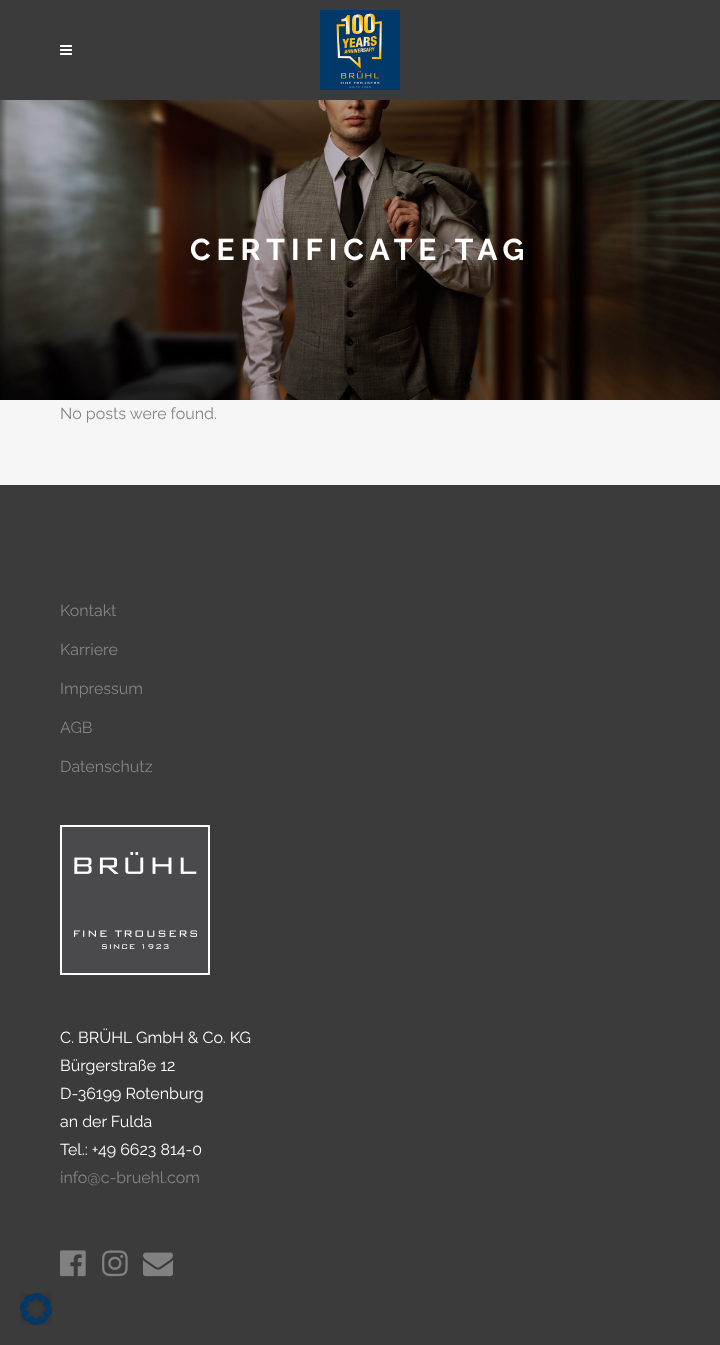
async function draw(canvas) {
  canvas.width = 720
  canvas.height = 1345
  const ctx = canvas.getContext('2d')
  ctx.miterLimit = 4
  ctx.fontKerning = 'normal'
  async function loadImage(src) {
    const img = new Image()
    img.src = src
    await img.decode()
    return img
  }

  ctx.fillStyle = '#f6f6f6'
  ctx.fillRect(0, 0, 720, 1345)
  ctx.fillStyle = '#3b3b3b'
  ctx.fillRect(0, 0, 720, 100)
  ctx.drawImage(await loadImage('image0.png'), 60, 45, 12, 10)
  ctx.drawImage(await loadImage('image1.png'), 320, 10, 80, 80)
  ctx.drawImage(await loadImage('image2.png'), 0, 100, 720, 300)
  ctx.letterSpacing = '6px'
  ctx.font = 'bold 30px Raleway'
  ctx.fillStyle = '#fff'
  ctx.fillText('CERTIFICATE TAG', 190, 260)
  ctx.letterSpacing = '0px'
  ctx.font = '16px Raleway'
  ctx.fillStyle = '#858585'
  ctx.fillText('No posts were found.', 60, 419)
  ctx.fillStyle = '#3b3b3b'
  ctx.fillRect(0, 485, 720, 860)
  ctx.fillStyle = '#858585'
  ctx.fillText('Kontakt', 60, 616)
  ctx.fillText('Karriere', 60, 655)
  ctx.fillText('Impressum', 60, 694)
  ctx.fillText('AGB', 60, 733)
  ctx.fillText('Datenschutz', 60, 772)
  ctx.drawImage(await loadImage('image3.png'), 60, 825, 150, 150)
  ctx.fillStyle = '#fff'
  ctx.fillText('C. BRÜHL GmbH & Co. KG', 60, 1043)
  ctx.fillText('Bürgerstraße 12', 60, 1071)
  ctx.fillText('D-36199 Rotenburg', 60, 1099)
  ctx.fillText('an der Fulda', 60, 1127)
  ctx.fillText('Tel.: +49 6623 814-0', 60, 1155)
  ctx.fillStyle = '#858585'
  ctx.fillText('info@c-bruehl.com', 60, 1183)
  ctx.drawImage(await loadImage('image4.png'), 60, 1250, 26, 27)
  ctx.drawImage(await loadImage('image5.png'), 102, 1250, 26, 27)
  ctx.drawImage(await loadImage('image6.png'), 143, 1252, 30, 25)
  ctx.drawImage(await loadImage('image7.png'), 20, 1293, 32, 32)
}

draw(document.querySelector('canvas'))
